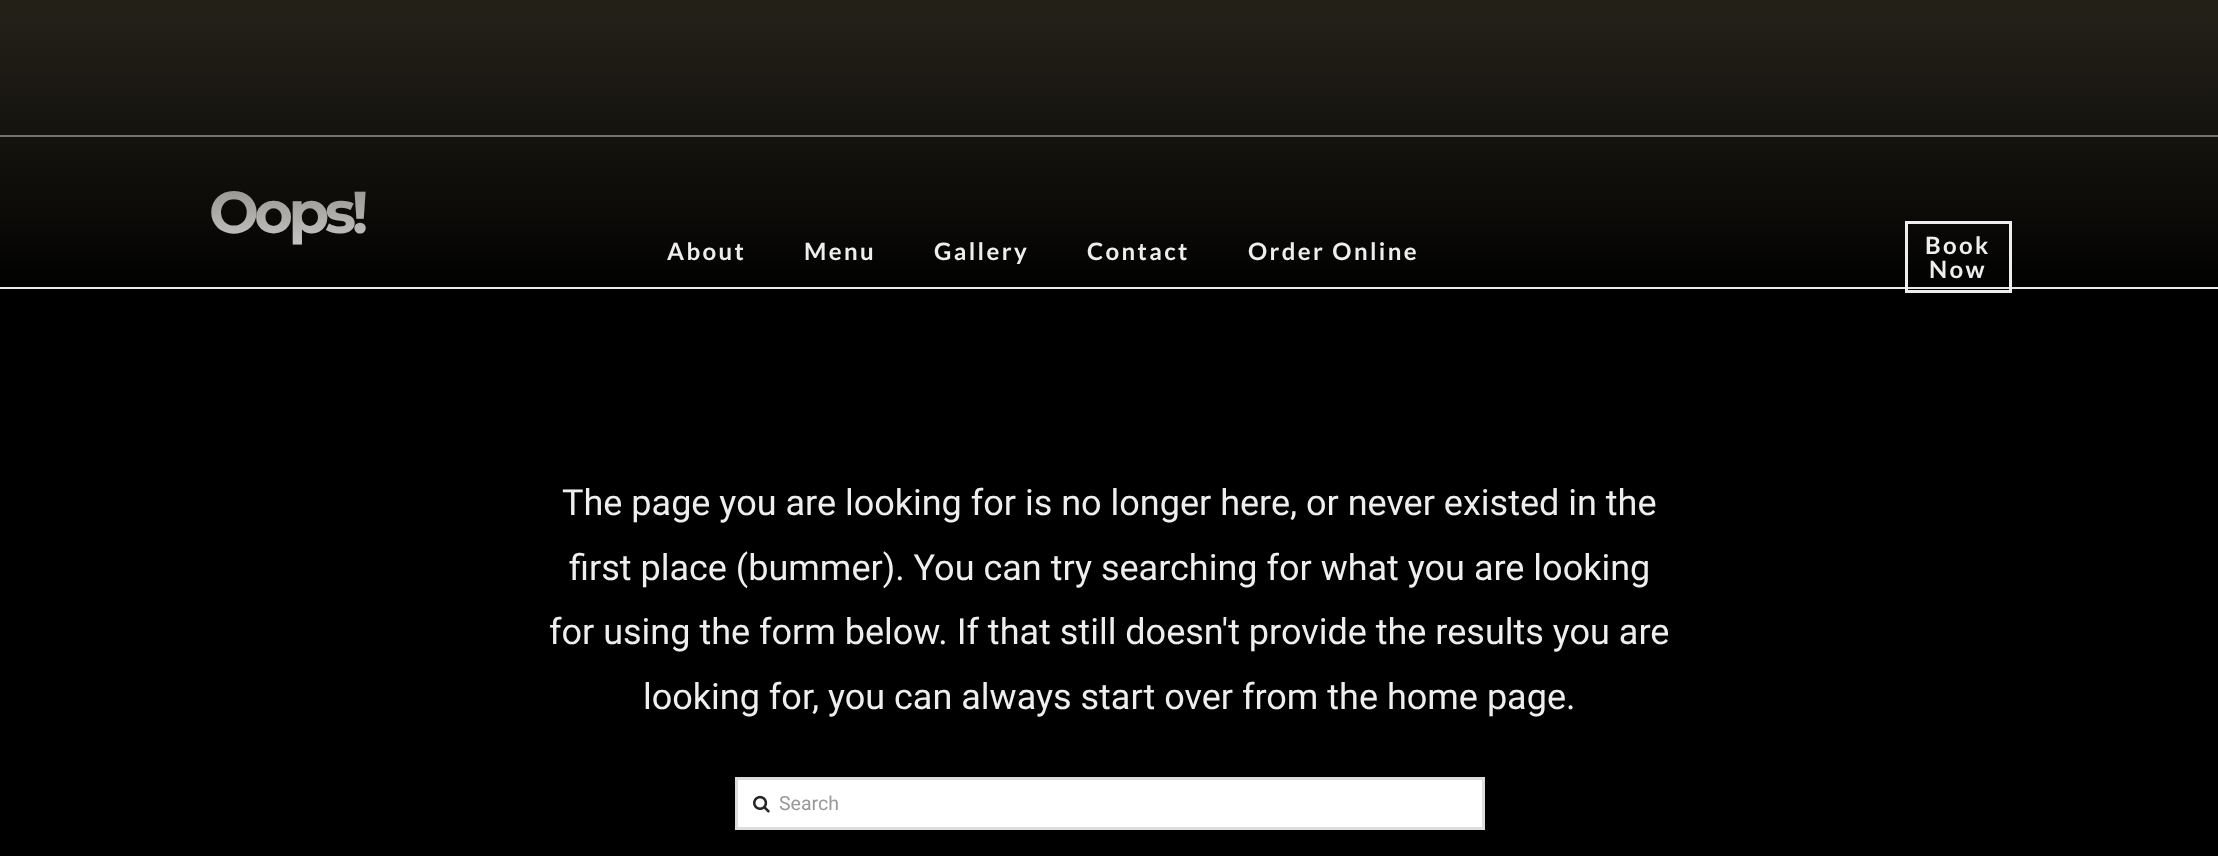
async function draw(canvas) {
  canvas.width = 2218
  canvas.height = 856
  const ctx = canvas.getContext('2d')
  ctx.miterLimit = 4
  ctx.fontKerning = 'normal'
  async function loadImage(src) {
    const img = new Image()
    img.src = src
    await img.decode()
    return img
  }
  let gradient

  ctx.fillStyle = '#000'
  ctx.fillRect(0, 0, 2218, 856)
  ctx.fillStyle = '#f2f2f2'
  ctx.fillRect(0, 135, 2218, 2)
  ctx.fillRect(0, 287, 2218, 2)
  ctx.letterSpacing = '-4.5px'
  ctx.font = '100 59px Montserrat'
  ctx.fillStyle = '#eee'
  ctx.fillText('Oops!', 209, 233)
  gradient = ctx.createLinearGradient(1109, 0, 1109, 333)
  gradient.addColorStop(0.05, '#232018')
  gradient.addColorStop(0.5, '#23201880')
  gradient.addColorStop(0.9, '#23201800')
  ctx.fillStyle = gradient
  ctx.fillRect(0, 0, 2218, 289)
  ctx.letterSpacing = '2.4px'
  ctx.font = 'bold 24px Lato'
  ctx.fillStyle = '#eee'
  ctx.fillText('About', 667, 260)
  ctx.fillText('Menu', 804, 260)
  ctx.fillText('Gallery', 934, 260)
  ctx.fillText('Contact', 1087, 260)
  ctx.fillText('Order Online', 1248, 260)
  ctx.strokeStyle = '#eee'
  ctx.lineWidth = 3
  ctx.strokeRect(1906.5, 222.5, 104, 69)
  ctx.fillText('Book', 1925, 254)
  ctx.fillText('Now', 1929, 278)
  ctx.letterSpacing = '0px'
  ctx.font = '36px Roboto'
  ctx.fillText('The page you are looking for is no longer here, or never existed in the', 562, 515)
  ctx.fillText('first place (bummer). You can try searching for what you are looking', 569, 580)
  ctx.fillText('for using the form below. If that still doesn\'t provide the results you are', 549, 644)
  ctx.fillText('looking for, you can always start over from the home page.', 643, 709)
  ctx.fillStyle = '#fff'
  ctx.beginPath()
  ctx.rect(736.5, 778.5, 747, 50)
  ctx.fill()
  ctx.strokeStyle = '#ddd'
  ctx.stroke()
  ctx.drawImage(await loadImage('image0.png'), 753, 795, 17, 18)
  ctx.font = '19.5px Roboto'
  ctx.fillStyle = '#999'
  ctx.fillText('Search', 779, 810)
}

draw(document.querySelector('canvas'))
